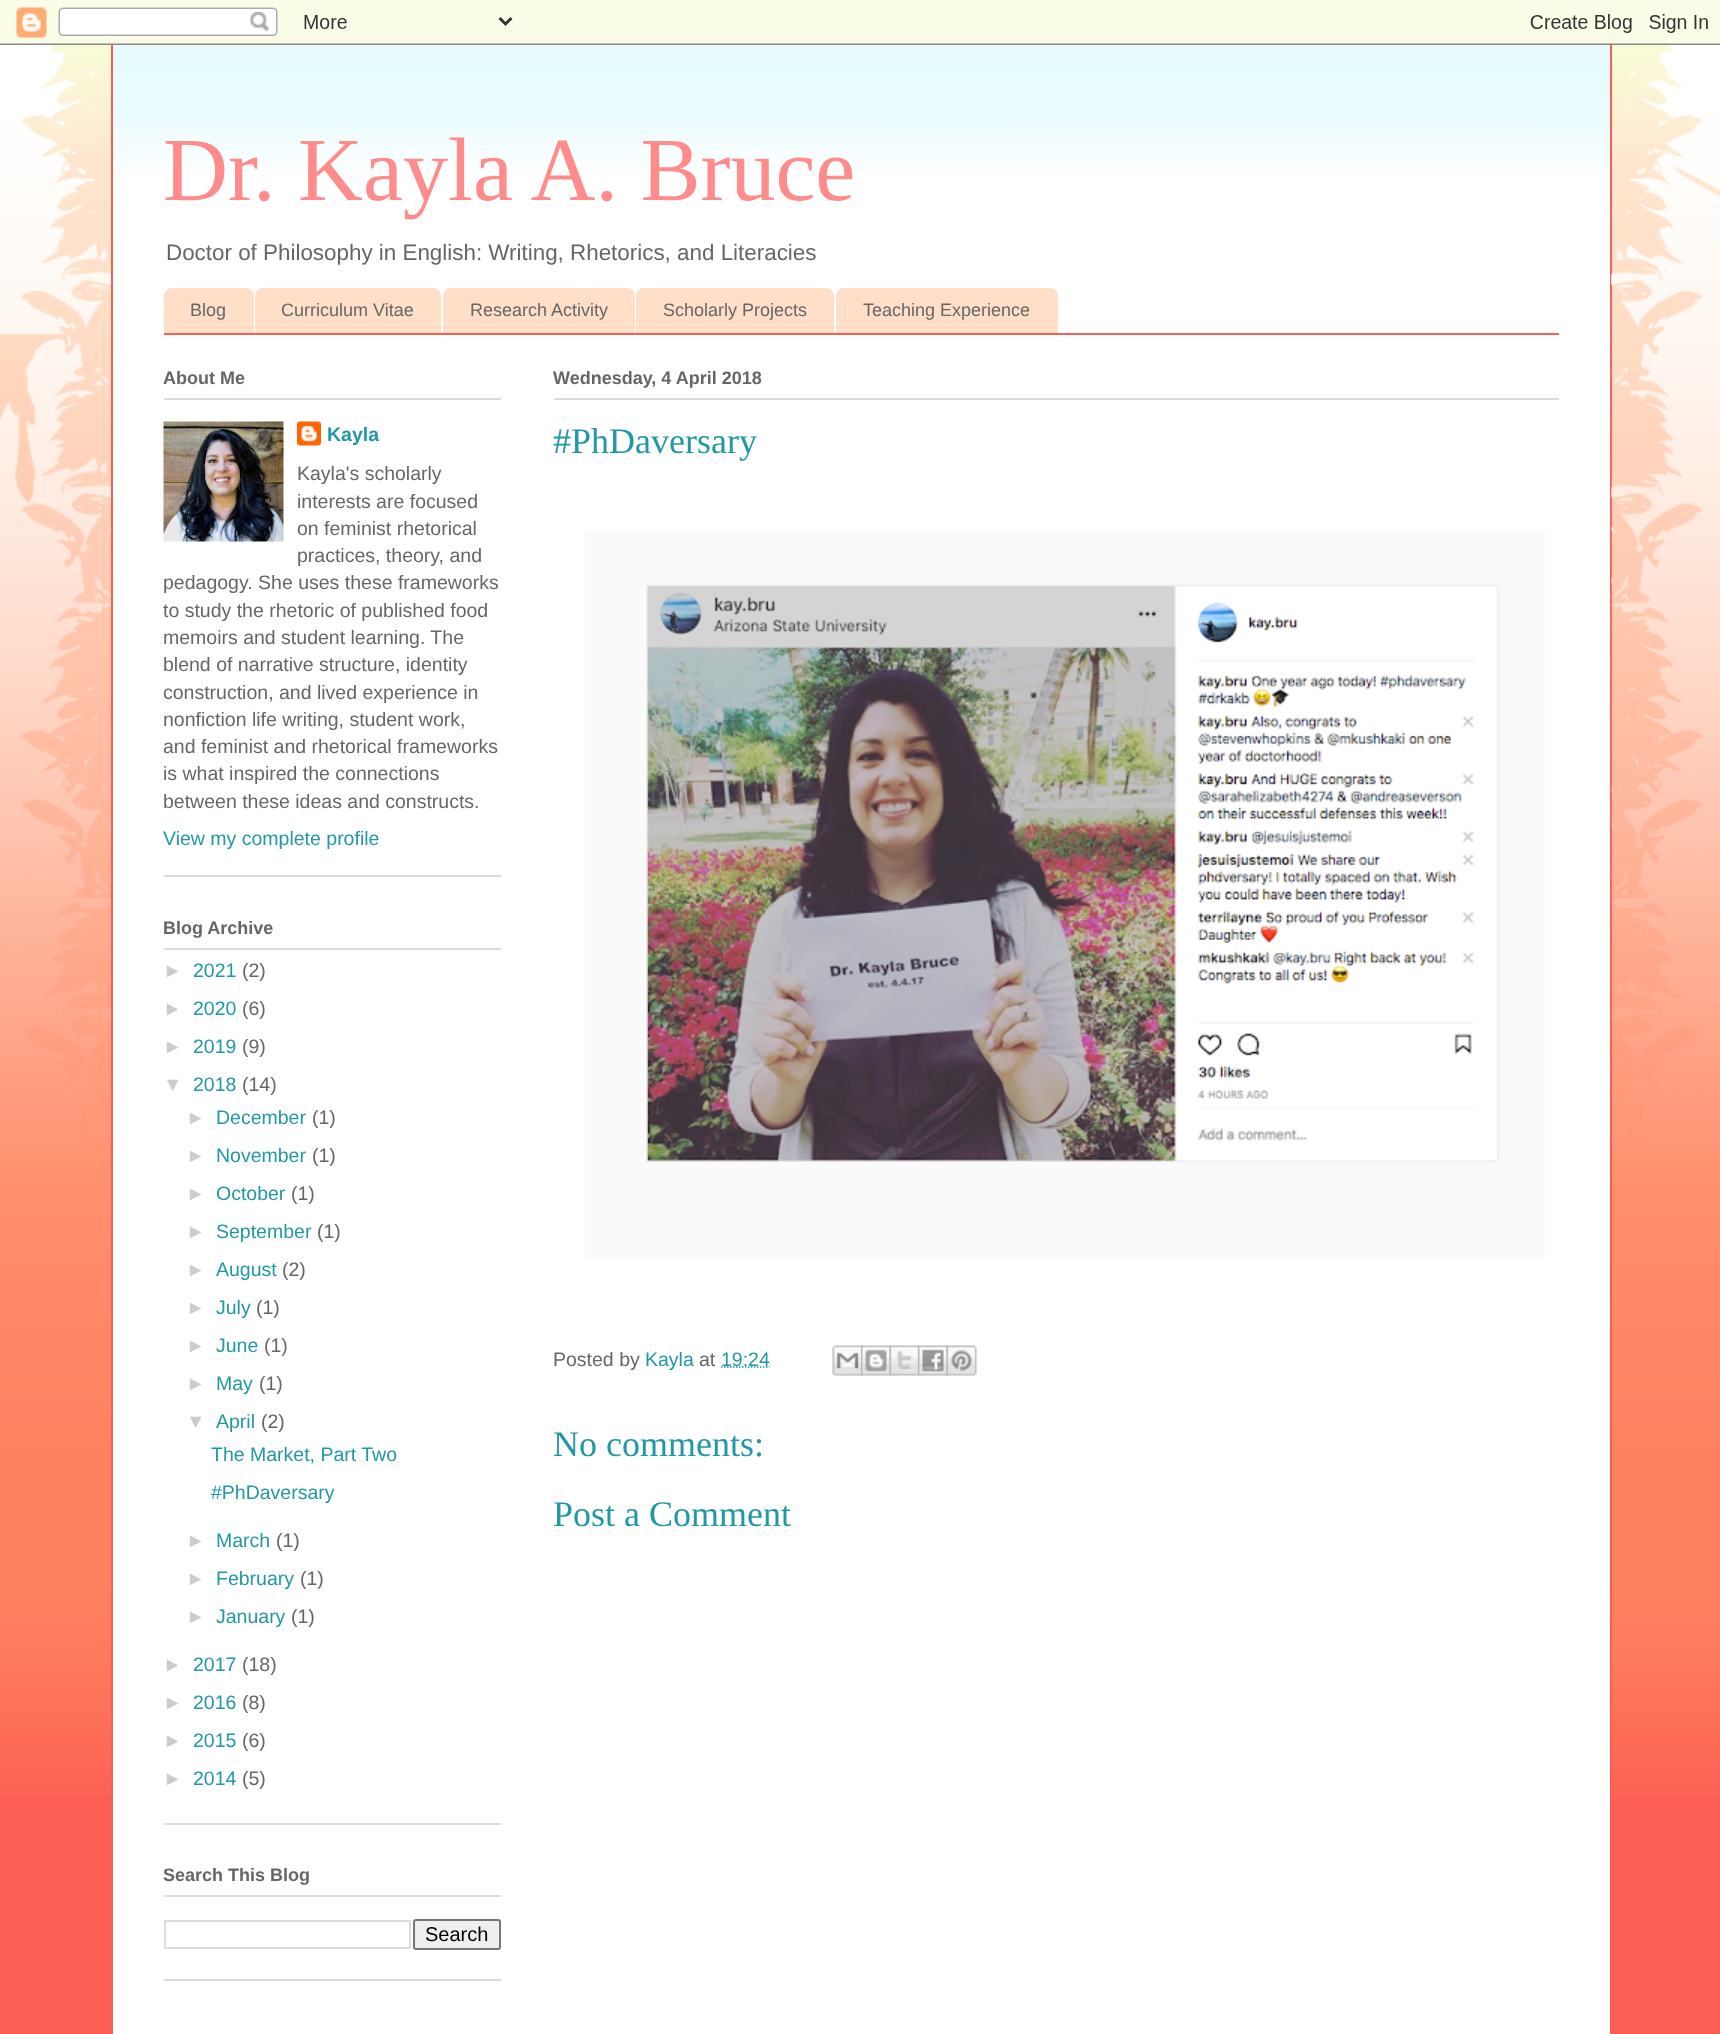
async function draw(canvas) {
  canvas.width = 1720
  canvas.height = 2034
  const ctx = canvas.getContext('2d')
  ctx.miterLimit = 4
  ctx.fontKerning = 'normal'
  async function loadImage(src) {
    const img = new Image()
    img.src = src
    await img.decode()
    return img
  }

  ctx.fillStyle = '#fb5e53'
  ctx.fillRect(0, 0, 1720, 2034)
  ctx.drawImage(await loadImage('image0.png'), 0, 0, 1720, 1796)
  ctx.drawImage(await loadImage('image1.png'), 0, 0, 1720, 45)
  ctx.drawImage(await loadImage('image2.png'), 0, 45, 111, 1112)
  ctx.fillStyle = '#fff'
  ctx.fillRect(113, 45, 1497, 1989)
  ctx.drawImage(await loadImage('image3.png'), 113, 45, 1497, 126)
  ctx.fillStyle = '#fb5e53'
  ctx.fillRect(1610, 45, 2, 1751)
  ctx.fillRect(111, 45, 2, 1751)
  ctx.drawImage(await loadImage('image4.png'), 1611, 45, 109, 1112)
  ctx.font = '90px Liberation Serif'
  ctx.fillStyle = '#ff8b8b'
  ctx.fillText('Dr. Kayla A. Bruce', 163, 200)
  ctx.font = '22.4px Liberation Sans'
  ctx.fillStyle = '#666'
  ctx.fillText('Doctor of Philosophy in English: Writing, Rhetorics, and Literacies', 166, 260)
  ctx.fillStyle = '#fb5e53'
  ctx.fillRect(164, 333, 1395, 2)
  ctx.fillStyle = '#ffdfc7'
  ctx.beginPath()
  ctx.roundRect(164, 288, 90, 45, [8, 8, 0, 0])
  ctx.fill()
  ctx.font = '18px Liberation Sans'
  ctx.fillStyle = '#666'
  ctx.fillText('Blog', 190, 316)
  ctx.fillStyle = '#ffdfc7'
  ctx.beginPath()
  ctx.roundRect(255, 288, 186, 45, [8, 8, 0, 0])
  ctx.fill()
  ctx.fillStyle = '#666'
  ctx.fillText('Curriculum Vitae', 281, 316)
  ctx.fillStyle = '#ffdfc7'
  ctx.beginPath()
  ctx.roundRect(443, 288, 192, 45, [8, 8, 0, 0])
  ctx.fill()
  ctx.fillStyle = '#666'
  ctx.fillText('Research Activity', 470, 316)
  ctx.fillStyle = '#ffdfc7'
  ctx.beginPath()
  ctx.roundRect(636, 288, 198, 45, [8, 8, 0, 0])
  ctx.fill()
  ctx.fillStyle = '#666'
  ctx.fillText('Scholarly Projects', 663, 316)
  ctx.fillStyle = '#ffdfc7'
  ctx.beginPath()
  ctx.roundRect(836, 288, 222, 45, [8, 8, 0, 0])
  ctx.fill()
  ctx.fillStyle = '#666'
  ctx.fillText('Teaching Experience', 863, 316)
  ctx.fillStyle = '#dbdbdb'
  ctx.fillRect(164, 875, 337, 2)
  ctx.fillRect(164, 398, 337, 2)
  ctx.font = 'bold 18px Liberation Sans'
  ctx.fillStyle = '#666'
  ctx.fillText('About Me', 163, 384)
  ctx.drawImage(await loadImage('image5.png'), 163, 421, 121, 121)
  ctx.drawImage(await loadImage('image6.png'), 297, 421, 24, 25)
  ctx.font = 'bold 19.5px Liberation Sans'
  ctx.fillStyle = '#2198a6'
  ctx.fillText('Kayla', 327, 441)
  ctx.font = '19.5px Liberation Sans'
  ctx.fillStyle = '#666'
  ctx.fillText('Kayla\'s scholarly', 297, 480)
  ctx.fillText('interests are focused', 297, 508)
  ctx.fillText('on feminist rhetorical', 297, 535)
  ctx.fillText('practices, theory, and', 297, 562)
  ctx.fillText('pedagogy. She uses these frameworks', 163, 589)
  ctx.fillText('to study the rhetoric of published food', 163, 617)
  ctx.fillText('memoirs and student learning. The', 163, 644)
  ctx.fillText('blend of narrative structure, identity', 163, 671)
  ctx.fillText('construction, and lived experience in', 163, 699)
  ctx.fillText('nonfiction life writing, student work,', 163, 726)
  ctx.fillText('and feminist and rhetorical frameworks', 163, 753)
  ctx.fillText('is what inspired the connections', 163, 780)
  ctx.fillText('between these ideas and constructs.', 163, 808)
  ctx.fillStyle = '#2198a6'
  ctx.fillText('View my complete profile', 163, 845)
  ctx.fillStyle = '#dbdbdb'
  ctx.fillRect(164, 1823, 337, 2)
  ctx.fillRect(164, 948, 337, 2)
  ctx.font = 'bold 18px Liberation Sans'
  ctx.fillStyle = '#666'
  ctx.fillText('Blog Archive', 163, 934)
  ctx.font = '19.5px Liberation Sans'
  ctx.fillStyle = '#ccc'
  ctx.fillText('►', 163, 977)
  ctx.fillStyle = '#2198a6'
  ctx.fillText('2021', 193, 977)
  ctx.fillStyle = '#666'
  ctx.fillText('(2)', 242, 977)
  ctx.fillStyle = '#ccc'
  ctx.fillText('►', 163, 1015)
  ctx.fillStyle = '#2198a6'
  ctx.fillText('2020', 193, 1015)
  ctx.fillStyle = '#666'
  ctx.fillText('(6)', 242, 1015)
  ctx.fillStyle = '#ccc'
  ctx.fillText('►', 163, 1053)
  ctx.fillStyle = '#2198a6'
  ctx.fillText('2019', 193, 1053)
  ctx.fillStyle = '#666'
  ctx.fillText('(9)', 242, 1053)
  ctx.fillStyle = '#ccc'
  ctx.fillText('▼', 163, 1091)
  ctx.fillStyle = '#2198a6'
  ctx.fillText('2018', 193, 1091)
  ctx.fillStyle = '#666'
  ctx.fillText('(14)', 242, 1091)
  ctx.fillStyle = '#ccc'
  ctx.fillText('►', 186, 1124)
  ctx.fillStyle = '#2198a6'
  ctx.fillText('December', 216, 1124)
  ctx.fillStyle = '#666'
  ctx.fillText('(1)', 312, 1124)
  ctx.fillStyle = '#ccc'
  ctx.fillText('►', 186, 1162)
  ctx.fillStyle = '#2198a6'
  ctx.fillText('November', 216, 1162)
  ctx.fillStyle = '#666'
  ctx.fillText('(1)', 312, 1162)
  ctx.fillStyle = '#ccc'
  ctx.fillText('►', 186, 1200)
  ctx.fillStyle = '#2198a6'
  ctx.fillText('October', 216, 1200)
  ctx.fillStyle = '#666'
  ctx.fillText('(1)', 291, 1200)
  ctx.fillStyle = '#ccc'
  ctx.fillText('►', 186, 1238)
  ctx.fillStyle = '#2198a6'
  ctx.fillText('September', 216, 1238)
  ctx.fillStyle = '#666'
  ctx.fillText('(1)', 317, 1238)
  ctx.fillStyle = '#ccc'
  ctx.fillText('►', 186, 1276)
  ctx.fillStyle = '#2198a6'
  ctx.fillText('August', 216, 1276)
  ctx.fillStyle = '#666'
  ctx.fillText('(2)', 282, 1276)
  ctx.fillStyle = '#ccc'
  ctx.fillText('►', 186, 1314)
  ctx.fillStyle = '#2198a6'
  ctx.fillText('July', 216, 1314)
  ctx.fillStyle = '#666'
  ctx.fillText('(1)', 256, 1314)
  ctx.fillStyle = '#ccc'
  ctx.fillText('►', 186, 1352)
  ctx.fillStyle = '#2198a6'
  ctx.fillText('June', 216, 1352)
  ctx.fillStyle = '#666'
  ctx.fillText('(1)', 264, 1352)
  ctx.fillStyle = '#ccc'
  ctx.fillText('►', 186, 1390)
  ctx.fillStyle = '#2198a6'
  ctx.fillText('May', 216, 1390)
  ctx.fillStyle = '#666'
  ctx.fillText('(1)', 259, 1390)
  ctx.fillStyle = '#ccc'
  ctx.fillText('▼', 186, 1428)
  ctx.fillStyle = '#2198a6'
  ctx.fillText('April', 216, 1428)
  ctx.fillStyle = '#666'
  ctx.fillText('(2)', 261, 1428)
  ctx.fillStyle = '#2198a6'
  ctx.fillText('The Market, Part Two', 211, 1461)
  ctx.fillText('#PhDaversary', 211, 1499)
  ctx.fillStyle = '#ccc'
  ctx.fillText('►', 186, 1547)
  ctx.fillStyle = '#2198a6'
  ctx.fillText('March', 216, 1547)
  ctx.fillStyle = '#666'
  ctx.fillText('(1)', 276, 1547)
  ctx.fillStyle = '#ccc'
  ctx.fillText('►', 186, 1585)
  ctx.fillStyle = '#2198a6'
  ctx.fillText('February', 216, 1585)
  ctx.fillStyle = '#666'
  ctx.fillText('(1)', 300, 1585)
  ctx.fillStyle = '#ccc'
  ctx.fillText('►', 186, 1623)
  ctx.fillStyle = '#2198a6'
  ctx.fillText('January', 216, 1623)
  ctx.fillStyle = '#666'
  ctx.fillText('(1)', 291, 1623)
  ctx.fillStyle = '#ccc'
  ctx.fillText('►', 163, 1671)
  ctx.fillStyle = '#2198a6'
  ctx.fillText('2017', 193, 1671)
  ctx.fillStyle = '#666'
  ctx.fillText('(18)', 242, 1671)
  ctx.fillStyle = '#ccc'
  ctx.fillText('►', 163, 1709)
  ctx.fillStyle = '#2198a6'
  ctx.fillText('2016', 193, 1709)
  ctx.fillStyle = '#666'
  ctx.fillText('(8)', 242, 1709)
  ctx.fillStyle = '#ccc'
  ctx.fillText('►', 163, 1747)
  ctx.fillStyle = '#2198a6'
  ctx.fillText('2015', 193, 1747)
  ctx.fillStyle = '#666'
  ctx.fillText('(6)', 242, 1747)
  ctx.fillStyle = '#ccc'
  ctx.fillText('►', 163, 1785)
  ctx.fillStyle = '#2198a6'
  ctx.fillText('2014', 193, 1785)
  ctx.fillStyle = '#666'
  ctx.fillText('(5)', 242, 1785)
  ctx.fillStyle = '#dbdbdb'
  ctx.fillRect(164, 1979, 337, 2)
  ctx.fillRect(164, 1895, 337, 2)
  ctx.font = 'bold 18px Liberation Sans'
  ctx.fillStyle = '#666'
  ctx.fillText('Search This Blog', 163, 1881)
  ctx.strokeStyle = '#ddd'
  ctx.lineWidth = 2
  ctx.strokeRect(165, 1921, 245, 27)
  ctx.fillStyle = '#efefef'
  ctx.beginPath()
  ctx.roundRect(414, 1920, 86, 29, 2)
  ctx.fill()
  ctx.strokeStyle = '#767676'
  ctx.stroke()
  ctx.font = '20px Liberation Sans'
  ctx.fillStyle = '#000'
  ctx.fillText('Search', 425, 1941)
  ctx.fillStyle = '#dbdbdb'
  ctx.fillRect(554, 398, 1005, 2)
  ctx.font = 'bold 18px Liberation Sans'
  ctx.fillStyle = '#666'
  ctx.fillText('Wednesday, 4 April 2018', 553, 384)
  ctx.font = '36px Liberation Serif'
  ctx.fillStyle = '#2198a6'
  ctx.fillText('#PhDaversary', 553, 453)
  ctx.drawImage(await loadImage('image7.png'), 585, 530, 960, 728)
  ctx.font = '19.5px Liberation Sans'
  ctx.fillStyle = '#666'
  ctx.fillText('Posted by', 553, 1366)
  ctx.fillStyle = '#2198a6'
  ctx.fillText('Kayla', 645, 1366)
  ctx.fillStyle = '#666'
  ctx.fillText('at', 699, 1366)
  ctx.beginPath()
  ctx.moveTo(721, 1367)
  ctx.lineTo(769.5, 1367)
  ctx.strokeStyle = '#2198a6'
  ctx.lineWidth = 1.5
  ctx.setLineDash([1.5, 1.5])
  ctx.stroke()
  ctx.fillStyle = '#2198a6'
  ctx.fillText('19:24', 721, 1366)
  ctx.drawImage(await loadImage('image8.png'), 832, 1345, 31, 31)
  ctx.drawImage(await loadImage('image9.png'), 861, 1345, 30, 31)
  ctx.drawImage(await loadImage('image10.png'), 889, 1345, 31, 31)
  ctx.drawImage(await loadImage('image11.png'), 918, 1345, 30, 31)
  ctx.drawImage(await loadImage('image12.png'), 946, 1345, 31, 31)
  ctx.font = '36px Liberation Serif'
  ctx.fillText('No comments:', 553, 1456)
  ctx.fillText('Post a Comment', 553, 1526)
}

draw(document.querySelector('canvas'))
